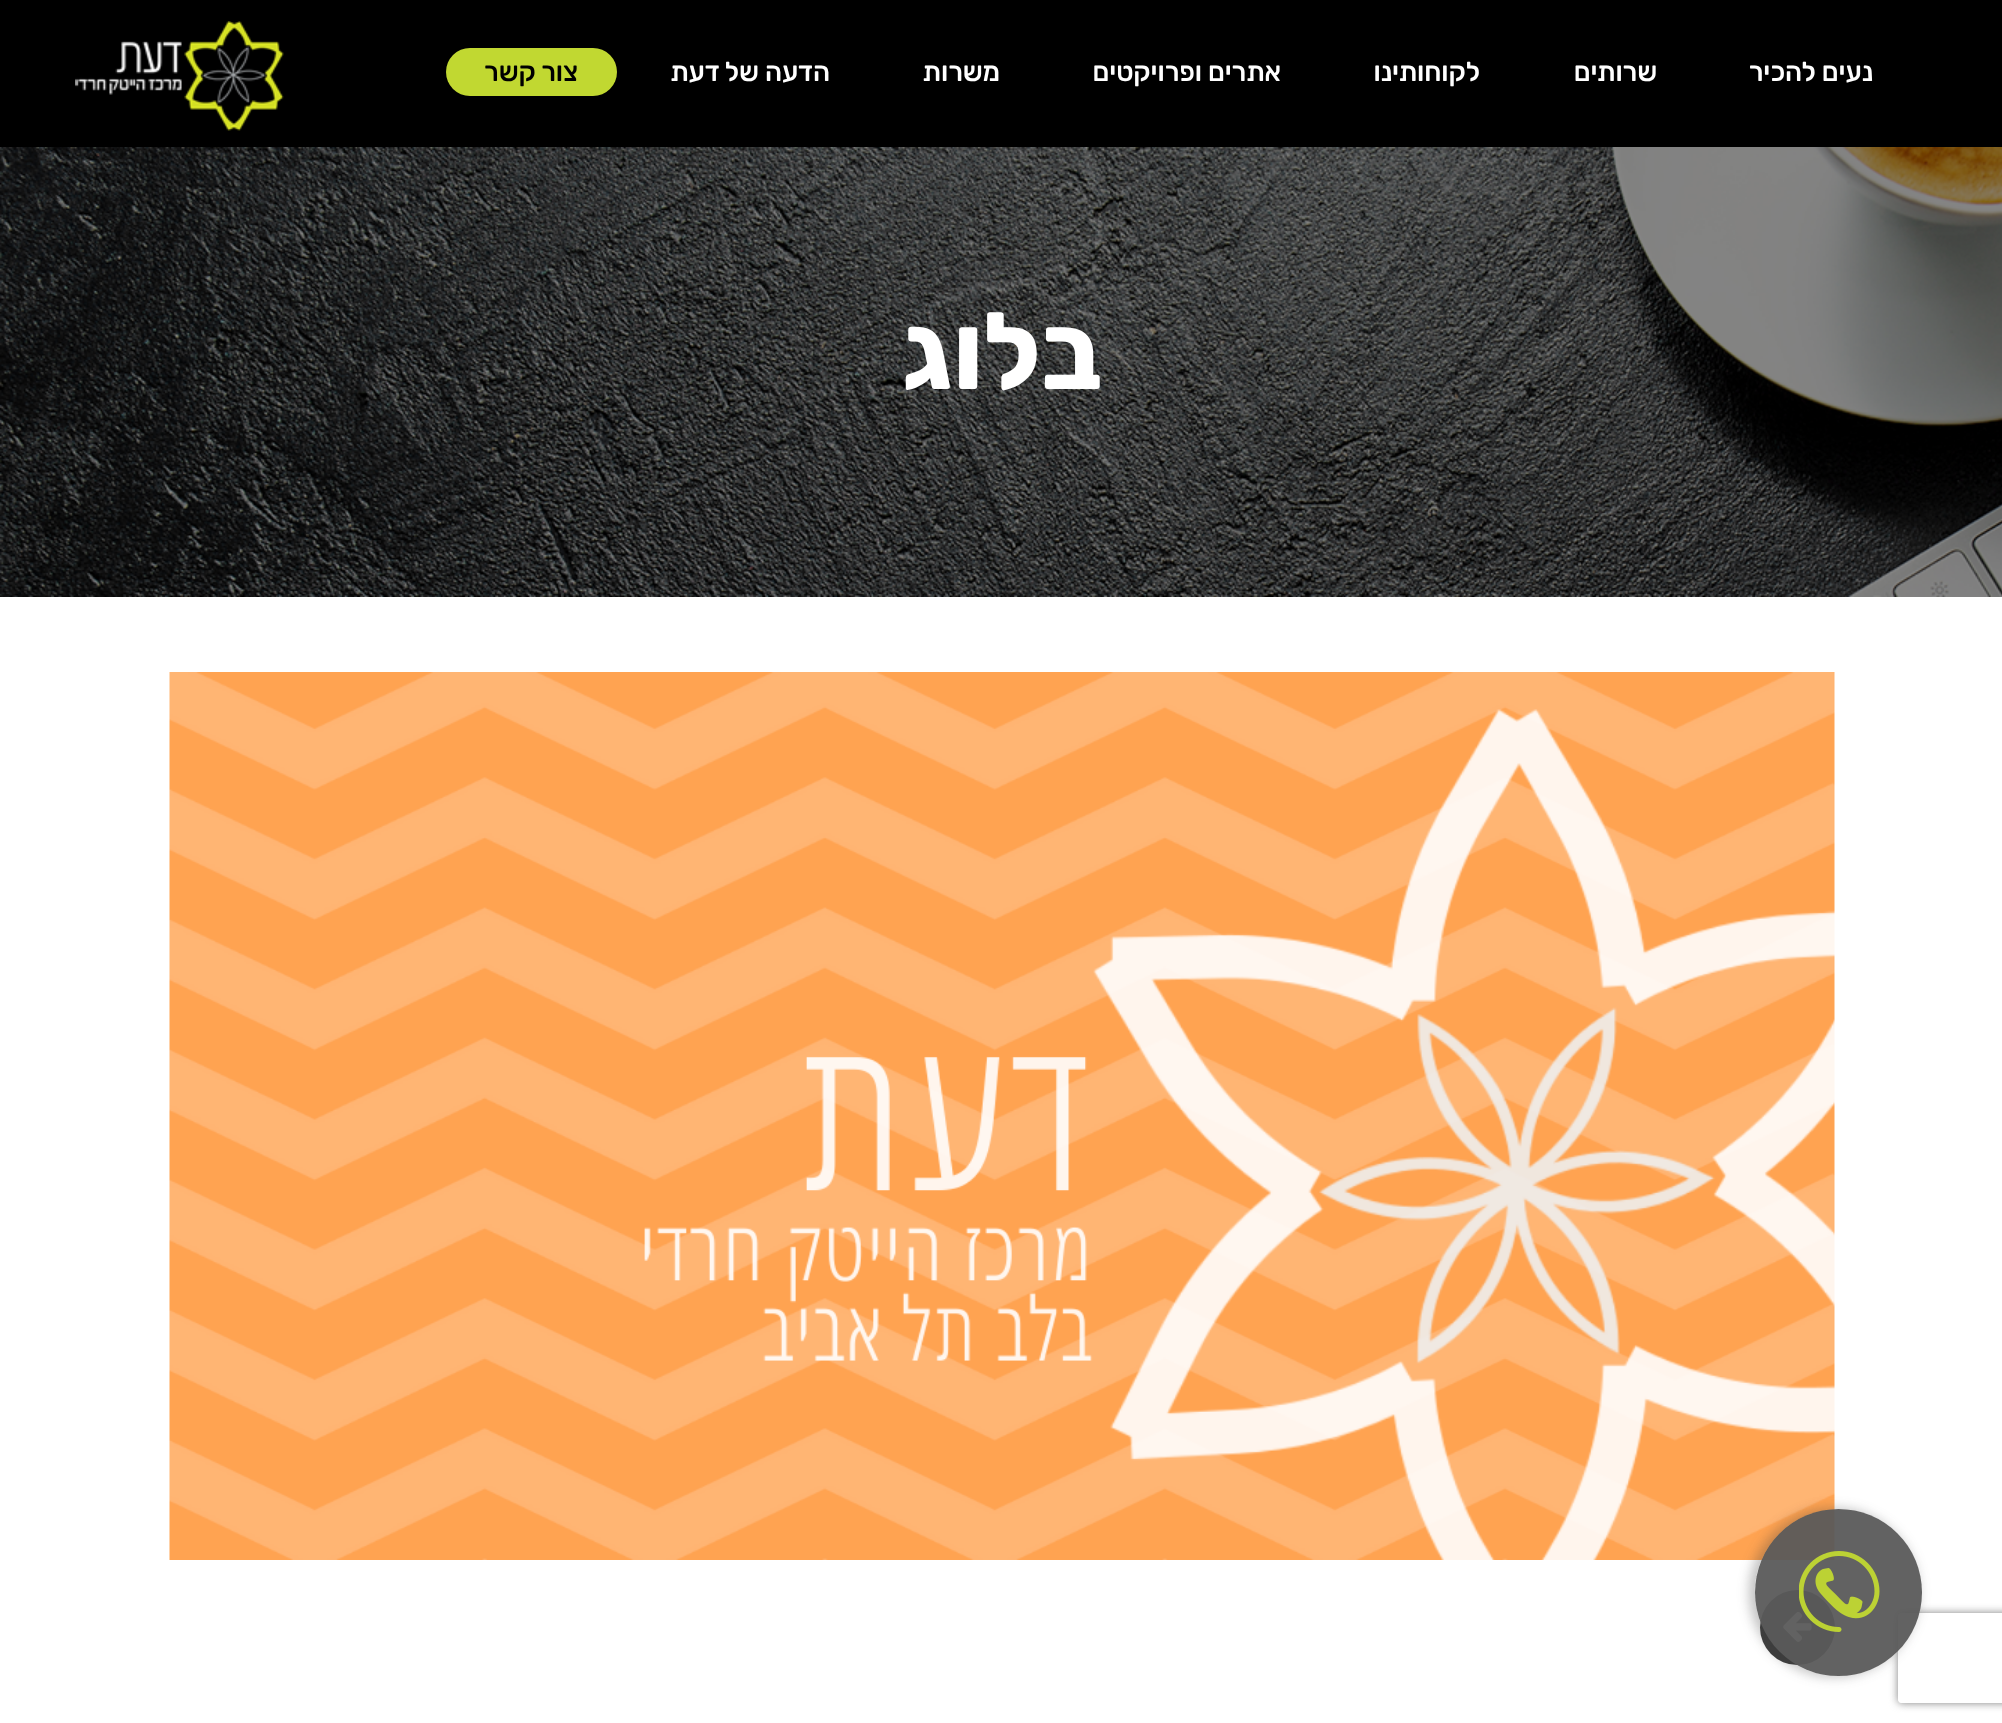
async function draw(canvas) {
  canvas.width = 2002
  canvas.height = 1723
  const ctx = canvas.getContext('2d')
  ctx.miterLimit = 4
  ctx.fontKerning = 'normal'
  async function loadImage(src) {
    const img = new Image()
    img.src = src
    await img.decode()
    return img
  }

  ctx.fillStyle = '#fff'
  ctx.fillRect(0, 0, 2002, 1723)
  ctx.fillStyle = '#000'
  ctx.fillRect(0, 0, 2002, 147)
  ctx.letterSpacing = '-0.1px'
  ctx.direction = 'rtl'
  ctx.font = '500 27px Rubik'
  ctx.fillStyle = '#fff'
  ctx.fillText('נעים להכיר', 1873, 81)
  ctx.fillText('שרותים', 1657, 81)
  ctx.fillText('לקוחותינו', 1480, 81)
  ctx.fillText('אתרים ופרויקטים', 1281, 81)
  ctx.fillText('משרות', 1000, 81)
  ctx.fillText('הדעה של דעת', 830, 81)
  ctx.fillStyle = '#c1d831'
  ctx.beginPath()
  ctx.roundRect(446, 48, 171, 48, 24)
  ctx.fill()
  ctx.fillStyle = '#000'
  ctx.fillText('צור קשר', 578, 81)
  ctx.drawImage(await loadImage('image0.png'), 75, 21, 209, 110)
  ctx.drawImage(await loadImage('image1.png'), 0, 147, 2002, 450)
  ctx.letterSpacing = '-0.5px'
  ctx.font = 'bold 108px Rubik'
  ctx.fillStyle = '#fff'
  ctx.fillText('בלוג', 1102, 389)
  ctx.drawImage(await loadImage('image2.png'), 169, 672, 1666, 888)
  ctx.fillStyle = '#3e3e3e'
  ctx.beginPath()
  ctx.arc(1797.5, 1627.5, 37.5, 0, 2 * Math.PI)
  ctx.fill()
  ctx.drawImage(await loadImage('image3.png'), 1783, 1611, 29, 31)
  ctx.save()
  ctx.beginPath()
  ctx.moveTo(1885, 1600)
  ctx.lineTo(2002, 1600)
  ctx.lineTo(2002, 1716)
  ctx.lineTo(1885, 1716)
  ctx.closePath()
  ctx.moveTo(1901, 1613)
  ctx.lineTo(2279, 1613)
  ctx.bezierCurveTo(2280.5, 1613, 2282, 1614.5, 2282, 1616)
  ctx.lineTo(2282, 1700)
  ctx.bezierCurveTo(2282, 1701.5, 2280.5, 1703, 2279, 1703)
  ctx.lineTo(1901, 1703)
  ctx.bezierCurveTo(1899.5, 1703, 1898, 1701.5, 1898, 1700)
  ctx.lineTo(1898, 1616)
  ctx.bezierCurveTo(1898, 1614.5, 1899.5, 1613, 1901, 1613)
  ctx.closePath()
  ctx.clip('evenodd')
  ctx.fillStyle = '#808080'
  ctx.filter = 'blur(4px)'
  ctx.beginPath()
  ctx.roundRect(1898, 1613, 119, 90, 3)
  ctx.fill()
  ctx.filter = 'none'
  ctx.restore()
  ctx.save()
  ctx.beginPath()
  ctx.moveTo(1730, 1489)
  ctx.lineTo(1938, 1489)
  ctx.lineTo(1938, 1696)
  ctx.lineTo(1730, 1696)
  ctx.closePath()
  ctx.moveTo(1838.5, 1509)
  ctx.bezierCurveTo(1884.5, 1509, 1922, 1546.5, 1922, 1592.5)
  ctx.bezierCurveTo(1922, 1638.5, 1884.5, 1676, 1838.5, 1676)
  ctx.bezierCurveTo(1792.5, 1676, 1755, 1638.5, 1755, 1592.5)
  ctx.bezierCurveTo(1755, 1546.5, 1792.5, 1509, 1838.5, 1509)
  ctx.closePath()
  ctx.clip('evenodd')
  ctx.fillStyle = '#3939394f'
  ctx.filter = 'blur(6px)'
  ctx.beginPath()
  ctx.roundRect(1749, 1508, 170, 169, 84.5)
  ctx.fill()
  ctx.filter = 'none'
  ctx.restore()
  ctx.fillStyle = '#5a5a5af2'
  ctx.beginPath()
  ctx.arc(1838.5, 1592.5, 83.5, 0, 2 * Math.PI)
  ctx.fill()
  ctx.drawImage(await loadImage('image4.png'), 1799, 1551, 81, 81)
}

draw(document.querySelector('canvas'))
